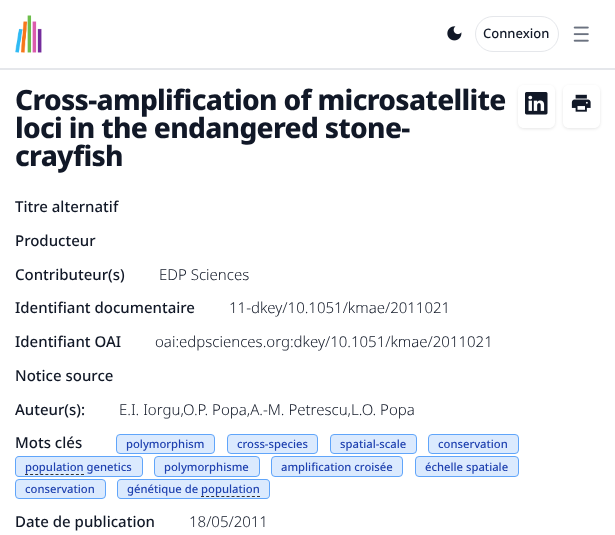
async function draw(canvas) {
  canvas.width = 615
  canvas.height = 535
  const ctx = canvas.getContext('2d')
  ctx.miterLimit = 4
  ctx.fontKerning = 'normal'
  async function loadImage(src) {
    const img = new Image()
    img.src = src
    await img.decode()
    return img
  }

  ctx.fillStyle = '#fff'
  ctx.fillRect(0, 0, 615, 535)
  ctx.fillStyle = '#e5e7eb'
  ctx.fillRect(0, 68, 615, 2)
  ctx.drawImage(await loadImage('image0.png'), 15, 15, 27, 38)
  ctx.drawImage(await loadImage('image1.png'), 447, 26, 15, 15)
  ctx.beginPath()
  ctx.roundRect(475.5, 16.5, 83, 35, 17.5)
  ctx.strokeStyle = '#e5e7eb'
  ctx.stroke()
  ctx.font = '500 13px Noto Sans'
  ctx.fillStyle = '#111827'
  ctx.fillText('Connexion', 483, 38)
  ctx.drawImage(await loadImage('image2.png'), 573, 26, 16, 16)
  ctx.letterSpacing = '-0.7px'
  ctx.font = '800 28.1px Noto Sans'
  ctx.fillText('Cross-amplification of microsatellite', 15, 110)
  ctx.fillText('loci in the endangered stone-', 15, 138)
  ctx.fillText('crayfish', 15, 166)
  ctx.save()
  ctx.beginPath()
  ctx.moveTo(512, 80)
  ctx.lineTo(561, 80)
  ctx.lineTo(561, 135)
  ctx.lineTo(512, 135)
  ctx.closePath()
  ctx.moveTo(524, 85)
  ctx.lineTo(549, 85)
  ctx.bezierCurveTo(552.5, 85, 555, 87.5, 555, 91)
  ctx.lineTo(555, 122)
  ctx.bezierCurveTo(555, 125.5, 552.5, 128, 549, 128)
  ctx.lineTo(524, 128)
  ctx.bezierCurveTo(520.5, 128, 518, 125.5, 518, 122)
  ctx.lineTo(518, 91)
  ctx.bezierCurveTo(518, 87.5, 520.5, 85, 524, 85)
  ctx.closePath()
  ctx.clip('evenodd')
  ctx.fillStyle = '#0000001a'
  ctx.filter = 'blur(1.5px)'
  ctx.beginPath()
  ctx.roundRect(518, 86, 37, 43, 6)
  ctx.fill()
  ctx.filter = 'none'
  ctx.restore()
  ctx.drawImage(await loadImage('image3.png'), 525, 92, 23, 23)
  ctx.save()
  ctx.beginPath()
  ctx.moveTo(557, 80)
  ctx.lineTo(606, 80)
  ctx.lineTo(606, 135)
  ctx.lineTo(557, 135)
  ctx.closePath()
  ctx.moveTo(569, 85)
  ctx.lineTo(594, 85)
  ctx.bezierCurveTo(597.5, 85, 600, 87.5, 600, 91)
  ctx.lineTo(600, 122)
  ctx.bezierCurveTo(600, 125.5, 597.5, 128, 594, 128)
  ctx.lineTo(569, 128)
  ctx.bezierCurveTo(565.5, 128, 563, 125.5, 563, 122)
  ctx.lineTo(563, 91)
  ctx.bezierCurveTo(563, 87.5, 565.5, 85, 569, 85)
  ctx.closePath()
  ctx.clip('evenodd')
  ctx.fillStyle = '#0000001a'
  ctx.filter = 'blur(1.5px)'
  ctx.beginPath()
  ctx.roundRect(563, 86, 37, 43, 6)
  ctx.fill()
  ctx.filter = 'none'
  ctx.restore()
  ctx.drawImage(await loadImage('image4.png'), 571, 94, 20, 18)
  ctx.letterSpacing = '0px'
  ctx.font = '500 15px Noto Sans'
  ctx.fillText('Titre alternatif', 15, 212)
  ctx.fillText('Producteur', 15, 246)
  ctx.fillText('Contributeur(s)', 15, 280)
  ctx.font = '300 15px Noto Sans'
  ctx.fillText('EDP Sciences', 159, 280)
  ctx.font = '500 15px Noto Sans'
  ctx.fillText('Identifiant documentaire', 15, 313)
  ctx.font = '300 15px Noto Sans'
  ctx.fillText('11-dkey/10.1051/kmae/2011021', 229, 313)
  ctx.font = '500 15px Noto Sans'
  ctx.fillText('Identifiant OAI', 15, 347)
  ctx.font = '300 15px Noto Sans'
  ctx.fillText('oai:edpsciences.org:dkey/10.1051/kmae/2011021', 155, 347)
  ctx.font = '500 15px Noto Sans'
  ctx.fillText('Notice source', 15, 381)
  ctx.fillText('Auteur(s):', 15, 415)
  ctx.font = '300 15px Noto Sans'
  ctx.fillText('E.I. Iorgu,O.P. Popa,A.-M. Petrescu,L.O. Popa', 119, 415)
  ctx.font = '500 15px Noto Sans'
  ctx.fillText('Mots clés', 15, 448)
  ctx.fillStyle = '#dbeafe'
  ctx.beginPath()
  ctx.roundRect(116.5, 434.5, 98, 19, 3.5)
  ctx.fill()
  ctx.strokeStyle = '#60a5fa'
  ctx.stroke()
  ctx.font = '500 11.25px Noto Sans'
  ctx.fillStyle = '#1e40af'
  ctx.fillText('polymorphism', 126, 448)
  ctx.fillStyle = '#dbeafe'
  ctx.beginPath()
  ctx.roundRect(227.5, 434.5, 90, 19, 3.5)
  ctx.fill()
  ctx.stroke()
  ctx.fillStyle = '#1e40af'
  ctx.fillText('cross-species', 237, 448)
  ctx.fillStyle = '#dbeafe'
  ctx.beginPath()
  ctx.roundRect(330.5, 434.5, 86, 19, 3.5)
  ctx.fill()
  ctx.stroke()
  ctx.fillStyle = '#1e40af'
  ctx.fillText('spatial-scale', 340, 448)
  ctx.fillStyle = '#dbeafe'
  ctx.beginPath()
  ctx.roundRect(428.5, 434.5, 90, 19, 3.5)
  ctx.fill()
  ctx.stroke()
  ctx.fillStyle = '#1e40af'
  ctx.fillText('conservation', 438, 448)
  ctx.fillStyle = '#dbeafe'
  ctx.beginPath()
  ctx.roundRect(15, 456, 69, 21, [4, 0, 0, 4])
  ctx.fill()
  ctx.fillStyle = '#60a5fa'
  ctx.beginPath()
  ctx.moveTo(19, 456)
  ctx.lineTo(84, 456)
  ctx.lineTo(84, 477)
  ctx.lineTo(19, 477)
  ctx.bezierCurveTo(17, 477, 15, 475, 15, 473)
  ctx.lineTo(15, 460)
  ctx.bezierCurveTo(15, 458, 17, 456, 19, 456)
  ctx.closePath()
  ctx.moveTo(19, 457)
  ctx.lineTo(84, 457)
  ctx.lineTo(84, 476)
  ctx.lineTo(19, 476)
  ctx.bezierCurveTo(17, 476, 16, 475, 16, 473)
  ctx.lineTo(16, 460)
  ctx.bezierCurveTo(16, 458, 17, 457, 19, 457)
  ctx.closePath()
  ctx.fill('evenodd')
  ctx.fillStyle = '#dbeafe'
  ctx.beginPath()
  ctx.roundRect(84, 456, 59, 21, [0, 4, 4, 0])
  ctx.fill()
  ctx.fillStyle = '#60a5fa'
  ctx.beginPath()
  ctx.moveTo(84, 456)
  ctx.lineTo(139, 456)
  ctx.bezierCurveTo(141, 456, 143, 458, 143, 460)
  ctx.lineTo(143, 473)
  ctx.bezierCurveTo(143, 475, 141, 477, 139, 477)
  ctx.lineTo(84, 477)
  ctx.closePath()
  ctx.moveTo(84, 457)
  ctx.lineTo(139, 457)
  ctx.bezierCurveTo(141, 457, 142, 458, 142, 460)
  ctx.lineTo(142, 473)
  ctx.bezierCurveTo(142, 475, 141, 476, 139, 476)
  ctx.lineTo(84, 476)
  ctx.closePath()
  ctx.fill('evenodd')
  ctx.fillStyle = '#1e40af'
  ctx.fillText('population genetics', 25, 471)
  ctx.beginPath()
  ctx.moveTo(25, 474.5)
  ctx.lineTo(84, 474.5)
  ctx.strokeStyle = '#333'
  ctx.setLineDash([3, 2.09])
  ctx.stroke()
  ctx.fillStyle = '#dbeafe'
  ctx.beginPath()
  ctx.roundRect(154.5, 456.5, 105, 20, 3.5)
  ctx.fill()
  ctx.strokeStyle = '#60a5fa'
  ctx.setLineDash([])
  ctx.stroke()
  ctx.fillStyle = '#1e40af'
  ctx.fillText('polymorphisme', 164, 471)
  ctx.fillStyle = '#dbeafe'
  ctx.beginPath()
  ctx.roundRect(271.5, 456.5, 131, 20, 3.5)
  ctx.fill()
  ctx.stroke()
  ctx.fillStyle = '#1e40af'
  ctx.fillText('amplification croisée', 281, 471)
  ctx.fillStyle = '#dbeafe'
  ctx.beginPath()
  ctx.roundRect(415.5, 456.5, 103, 20, 3.5)
  ctx.fill()
  ctx.stroke()
  ctx.fillStyle = '#1e40af'
  ctx.fillText('échelle spatiale', 425, 471)
  ctx.fillStyle = '#dbeafe'
  ctx.beginPath()
  ctx.roundRect(15.5, 479.5, 90, 19, 3.5)
  ctx.fill()
  ctx.stroke()
  ctx.fillStyle = '#1e40af'
  ctx.fillText('conservation', 25, 493)
  ctx.fillStyle = '#dbeafe'
  ctx.beginPath()
  ctx.roundRect(117, 479, 84, 20, [4, 0, 0, 4])
  ctx.fill()
  ctx.fillStyle = '#60a5fa'
  ctx.beginPath()
  ctx.moveTo(121, 479)
  ctx.lineTo(201, 479)
  ctx.lineTo(201, 499)
  ctx.lineTo(121, 499)
  ctx.bezierCurveTo(119, 499, 117, 497, 117, 495)
  ctx.lineTo(117, 483)
  ctx.bezierCurveTo(117, 481, 119, 479, 121, 479)
  ctx.closePath()
  ctx.moveTo(121, 480)
  ctx.lineTo(201, 480)
  ctx.lineTo(201, 498)
  ctx.lineTo(121, 498)
  ctx.bezierCurveTo(119, 498, 118, 497, 118, 495)
  ctx.lineTo(118, 483)
  ctx.bezierCurveTo(118, 481, 119, 480, 121, 480)
  ctx.closePath()
  ctx.fill('evenodd')
  ctx.fillStyle = '#dbeafe'
  ctx.beginPath()
  ctx.roundRect(201, 479, 69, 20, [0, 4, 4, 0])
  ctx.fill()
  ctx.fillStyle = '#60a5fa'
  ctx.beginPath()
  ctx.moveTo(201, 479)
  ctx.lineTo(266, 479)
  ctx.bezierCurveTo(268, 479, 270, 481, 270, 483)
  ctx.lineTo(270, 495)
  ctx.bezierCurveTo(270, 497, 268, 499, 266, 499)
  ctx.lineTo(201, 499)
  ctx.closePath()
  ctx.moveTo(201, 480)
  ctx.lineTo(266, 480)
  ctx.bezierCurveTo(268, 480, 269, 481, 269, 483)
  ctx.lineTo(269, 495)
  ctx.bezierCurveTo(269, 497, 268, 498, 266, 498)
  ctx.lineTo(201, 498)
  ctx.closePath()
  ctx.fill('evenodd')
  ctx.fillStyle = '#1e40af'
  ctx.fillText('génétique de population', 127, 493)
  ctx.beginPath()
  ctx.moveTo(201, 496.5)
  ctx.lineTo(260, 496.5)
  ctx.strokeStyle = '#333'
  ctx.setLineDash([3, 2.09])
  ctx.stroke()
  ctx.font = '500 15px Noto Sans'
  ctx.fillStyle = '#111827'
  ctx.fillText('Date de publication', 15, 527)
  ctx.font = '300 15px Noto Sans'
  ctx.fillText('18/05/2011', 189, 527)
}

draw(document.querySelector('canvas'))
